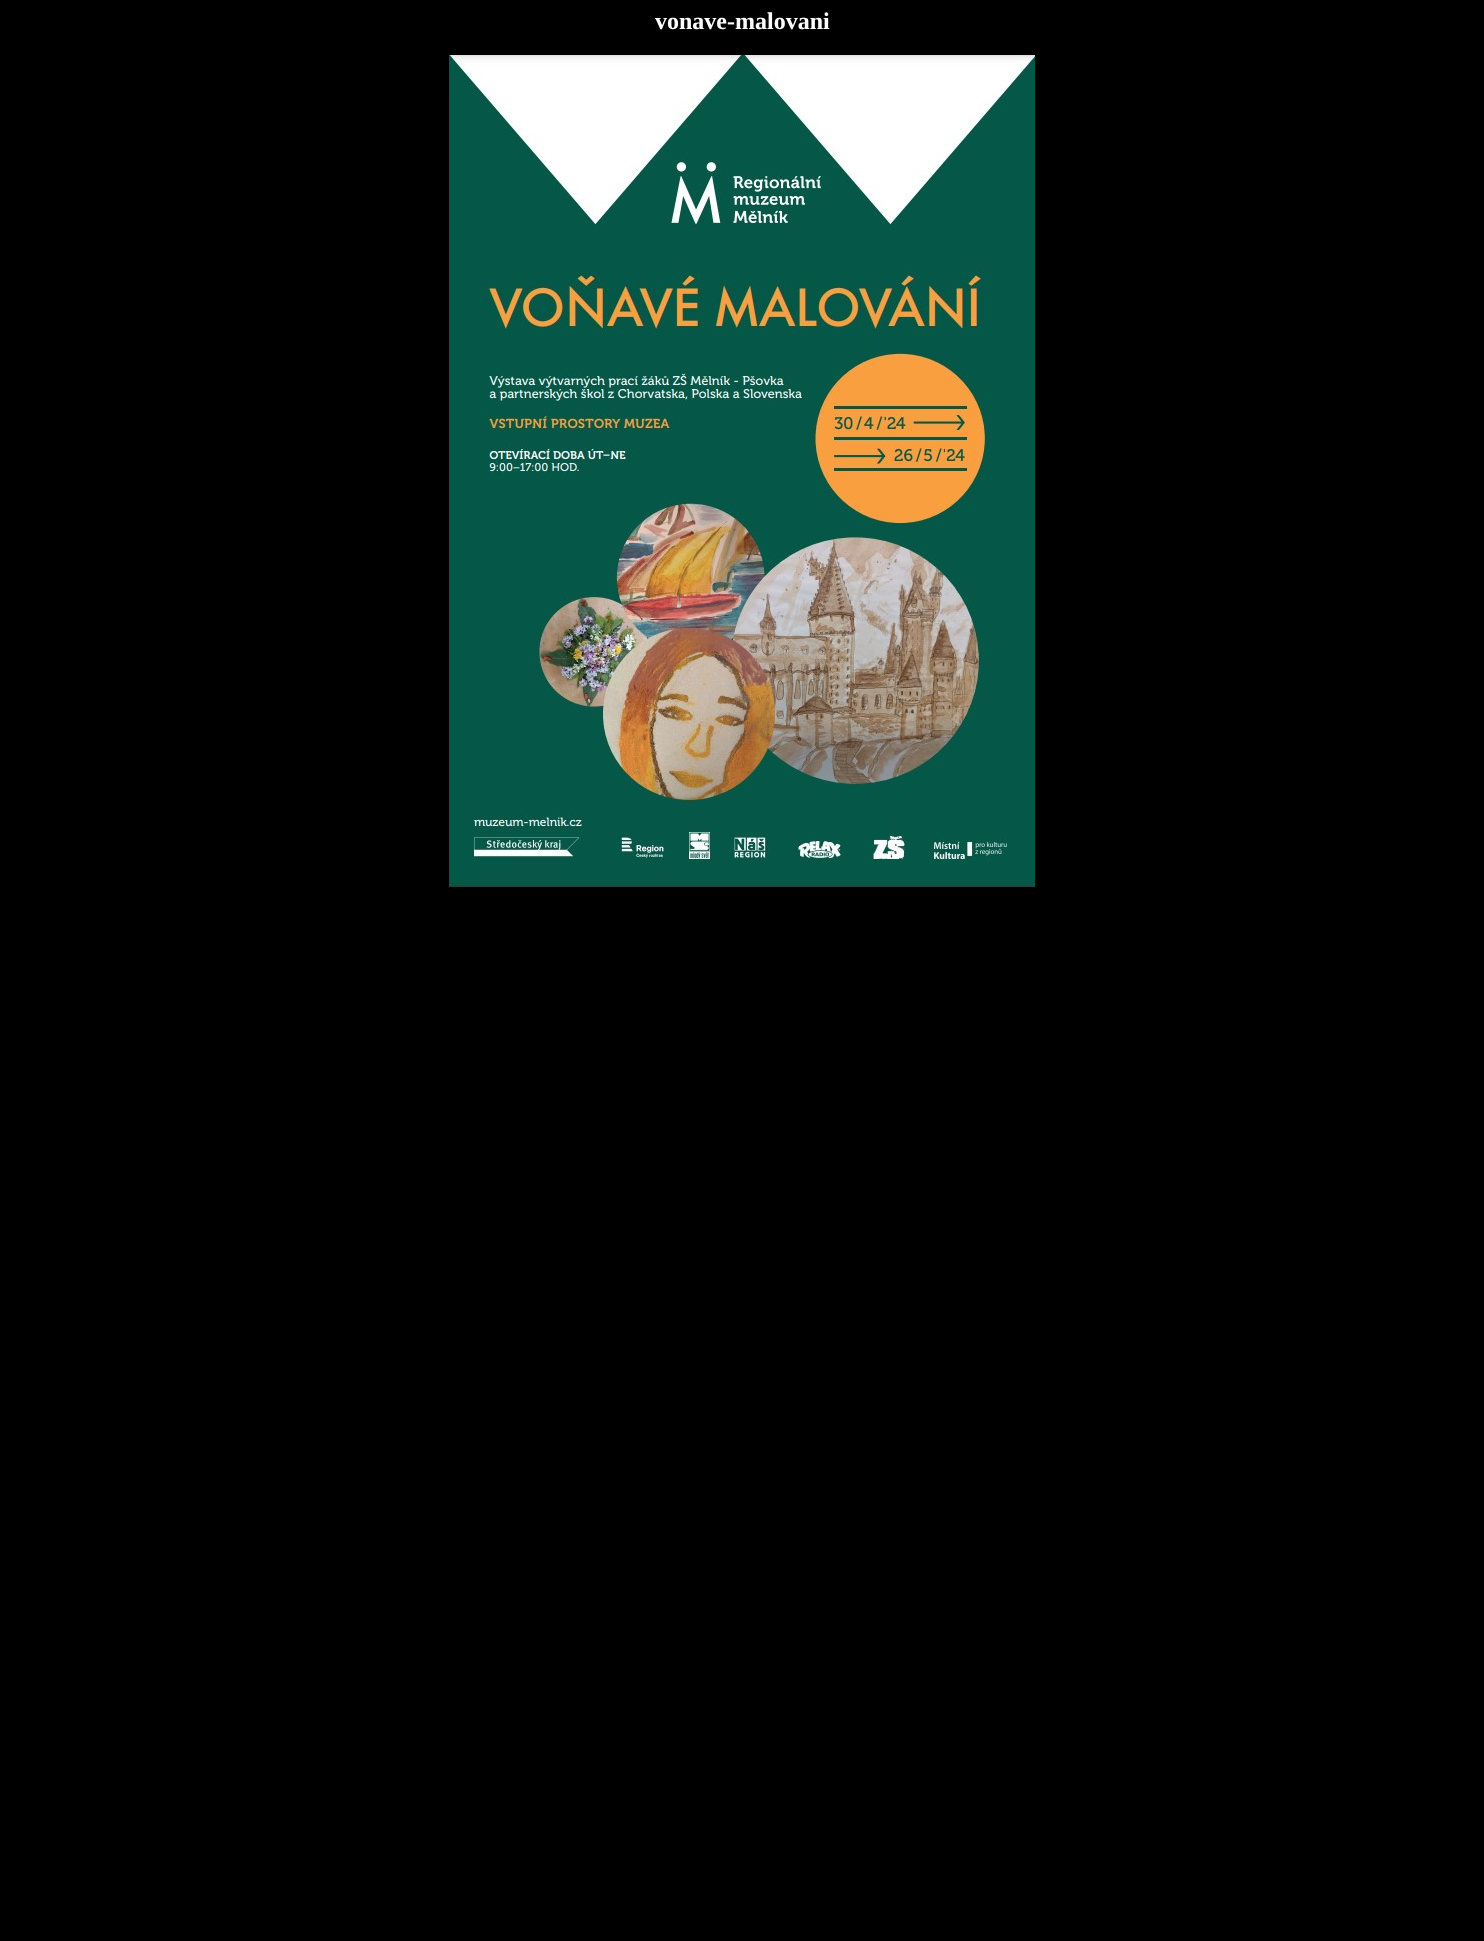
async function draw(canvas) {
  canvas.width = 1484
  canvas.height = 1941
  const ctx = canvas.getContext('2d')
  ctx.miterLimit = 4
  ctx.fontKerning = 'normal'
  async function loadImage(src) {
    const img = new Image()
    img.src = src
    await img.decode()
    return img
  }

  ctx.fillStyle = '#000'
  ctx.fillRect(0, 0, 1484, 1941)
  ctx.font = 'bold 24px Liberation Serif'
  ctx.fillStyle = '#fff'
  ctx.fillText('vonave-malovani', 655, 29)
  ctx.drawImage(await loadImage('image0.png'), 449, 55, 586, 832)
}

draw(document.querySelector('canvas'))
